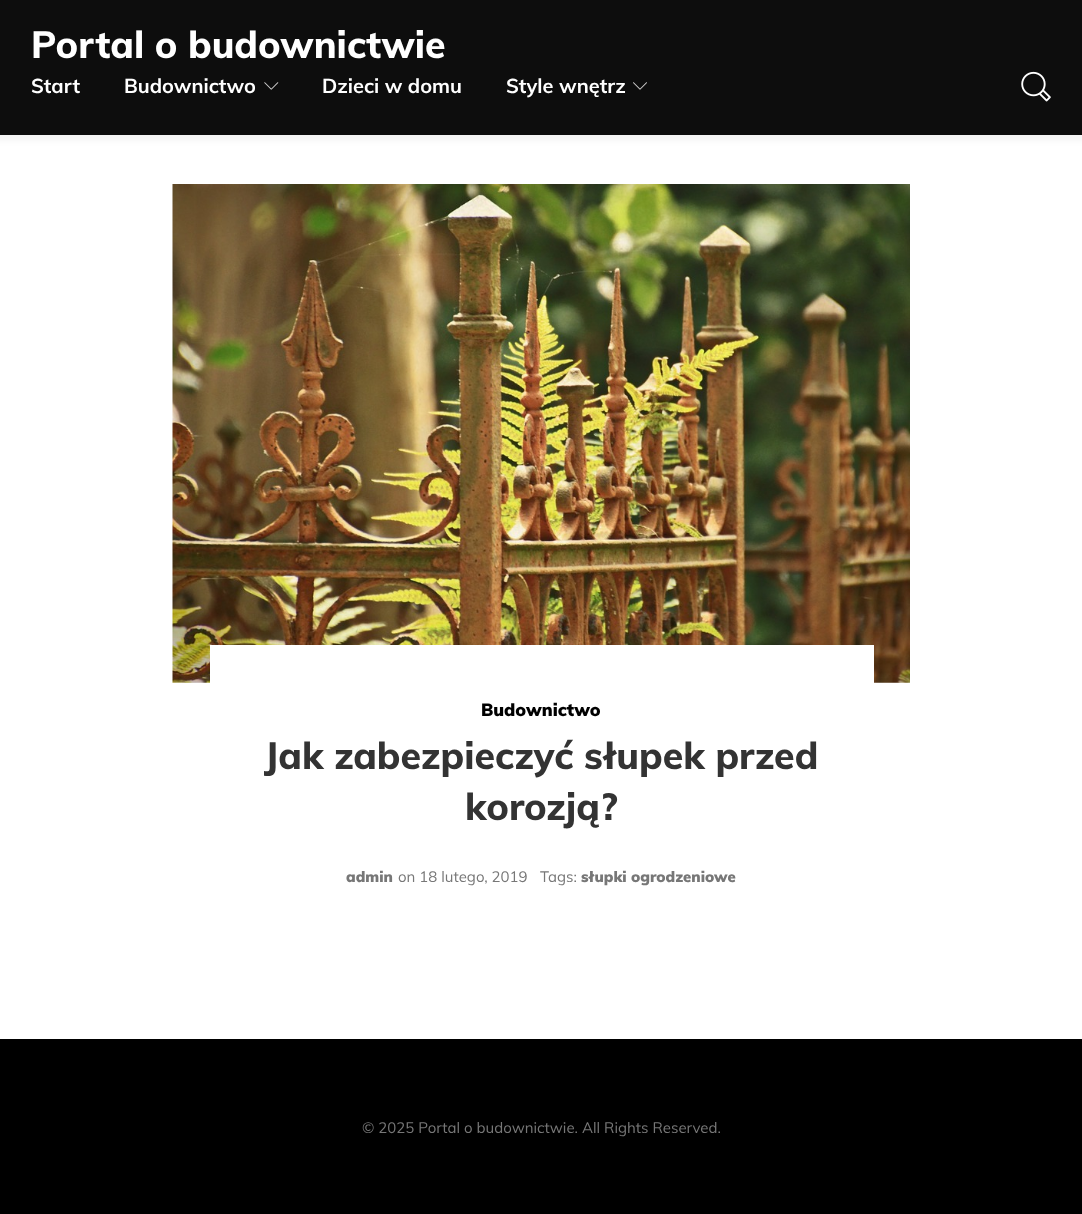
async function draw(canvas) {
  canvas.width = 1082
  canvas.height = 1214
  const ctx = canvas.getContext('2d')
  ctx.miterLimit = 4
  ctx.fontKerning = 'normal'
  async function loadImage(src) {
    const img = new Image()
    img.src = src
    await img.decode()
    return img
  }

  ctx.fillStyle = '#fff'
  ctx.fillRect(0, 0, 1082, 1214)
  ctx.fillStyle = '#0000000a'
  ctx.filter = 'blur(3px)'
  ctx.beginPath()
  ctx.rect(-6, -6, 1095, 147)
  ctx.fill()
  ctx.filter = 'none'
  ctx.fillStyle = '#0d0d0d'
  ctx.fillRect(0, 0, 1082, 135)
  ctx.font = '800 37.5px Muli'
  ctx.fillStyle = '#fff'
  ctx.fillText('Portal o budownictwie', 31, 58)
  ctx.font = 'bold 20px Muli'
  ctx.fillText('Start', 31, 93)
  ctx.fillText('Budownictwo', 124, 93)
  ctx.drawImage(await loadImage('image0.png'), 264, 82, 15, 8)
  ctx.fillText('Dzieci w domu', 322, 93)
  ctx.fillText('Style wnętrz', 506, 93)
  ctx.drawImage(await loadImage('image1.png'), 633, 82, 14, 8)
  ctx.drawImage(await loadImage('image2.png'), 1021, 71, 30, 31)
  ctx.drawImage(await loadImage('image3.png'), 172, 184, 738, 499)
  ctx.fillRect(210, 645, 664, 38)
  ctx.font = '900 17.5px Muli'
  ctx.fillStyle = '#000'
  ctx.fillText('Budownictwo', 481, 716)
  ctx.font = '800 37.5px Muli'
  ctx.fillStyle = '#333'
  ctx.fillText('Jak zabezpieczyć słupek przed', 264, 769)
  ctx.fillText('korozją?', 465, 820)
  ctx.font = '900 15px Muli'
  ctx.fillStyle = '#777'
  ctx.fillText('admin', 346, 882)
  ctx.font = '15px Muli'
  ctx.fillText('on 18 lutego, 2019', 398, 882)
  ctx.fillText('Tags:', 540, 882)
  ctx.font = '900 15px Muli'
  ctx.fillText('słupki ogrodzeniowe', 581, 882)
  ctx.fillStyle = '#000'
  ctx.fillRect(0, 1039, 1082, 175)
  ctx.font = '15px Muli'
  ctx.fillStyle = '#777'
  ctx.fillText('© 2025 Portal o budownictwie. All Rights Reserved.', 362, 1133)
}

draw(document.querySelector('canvas'))
